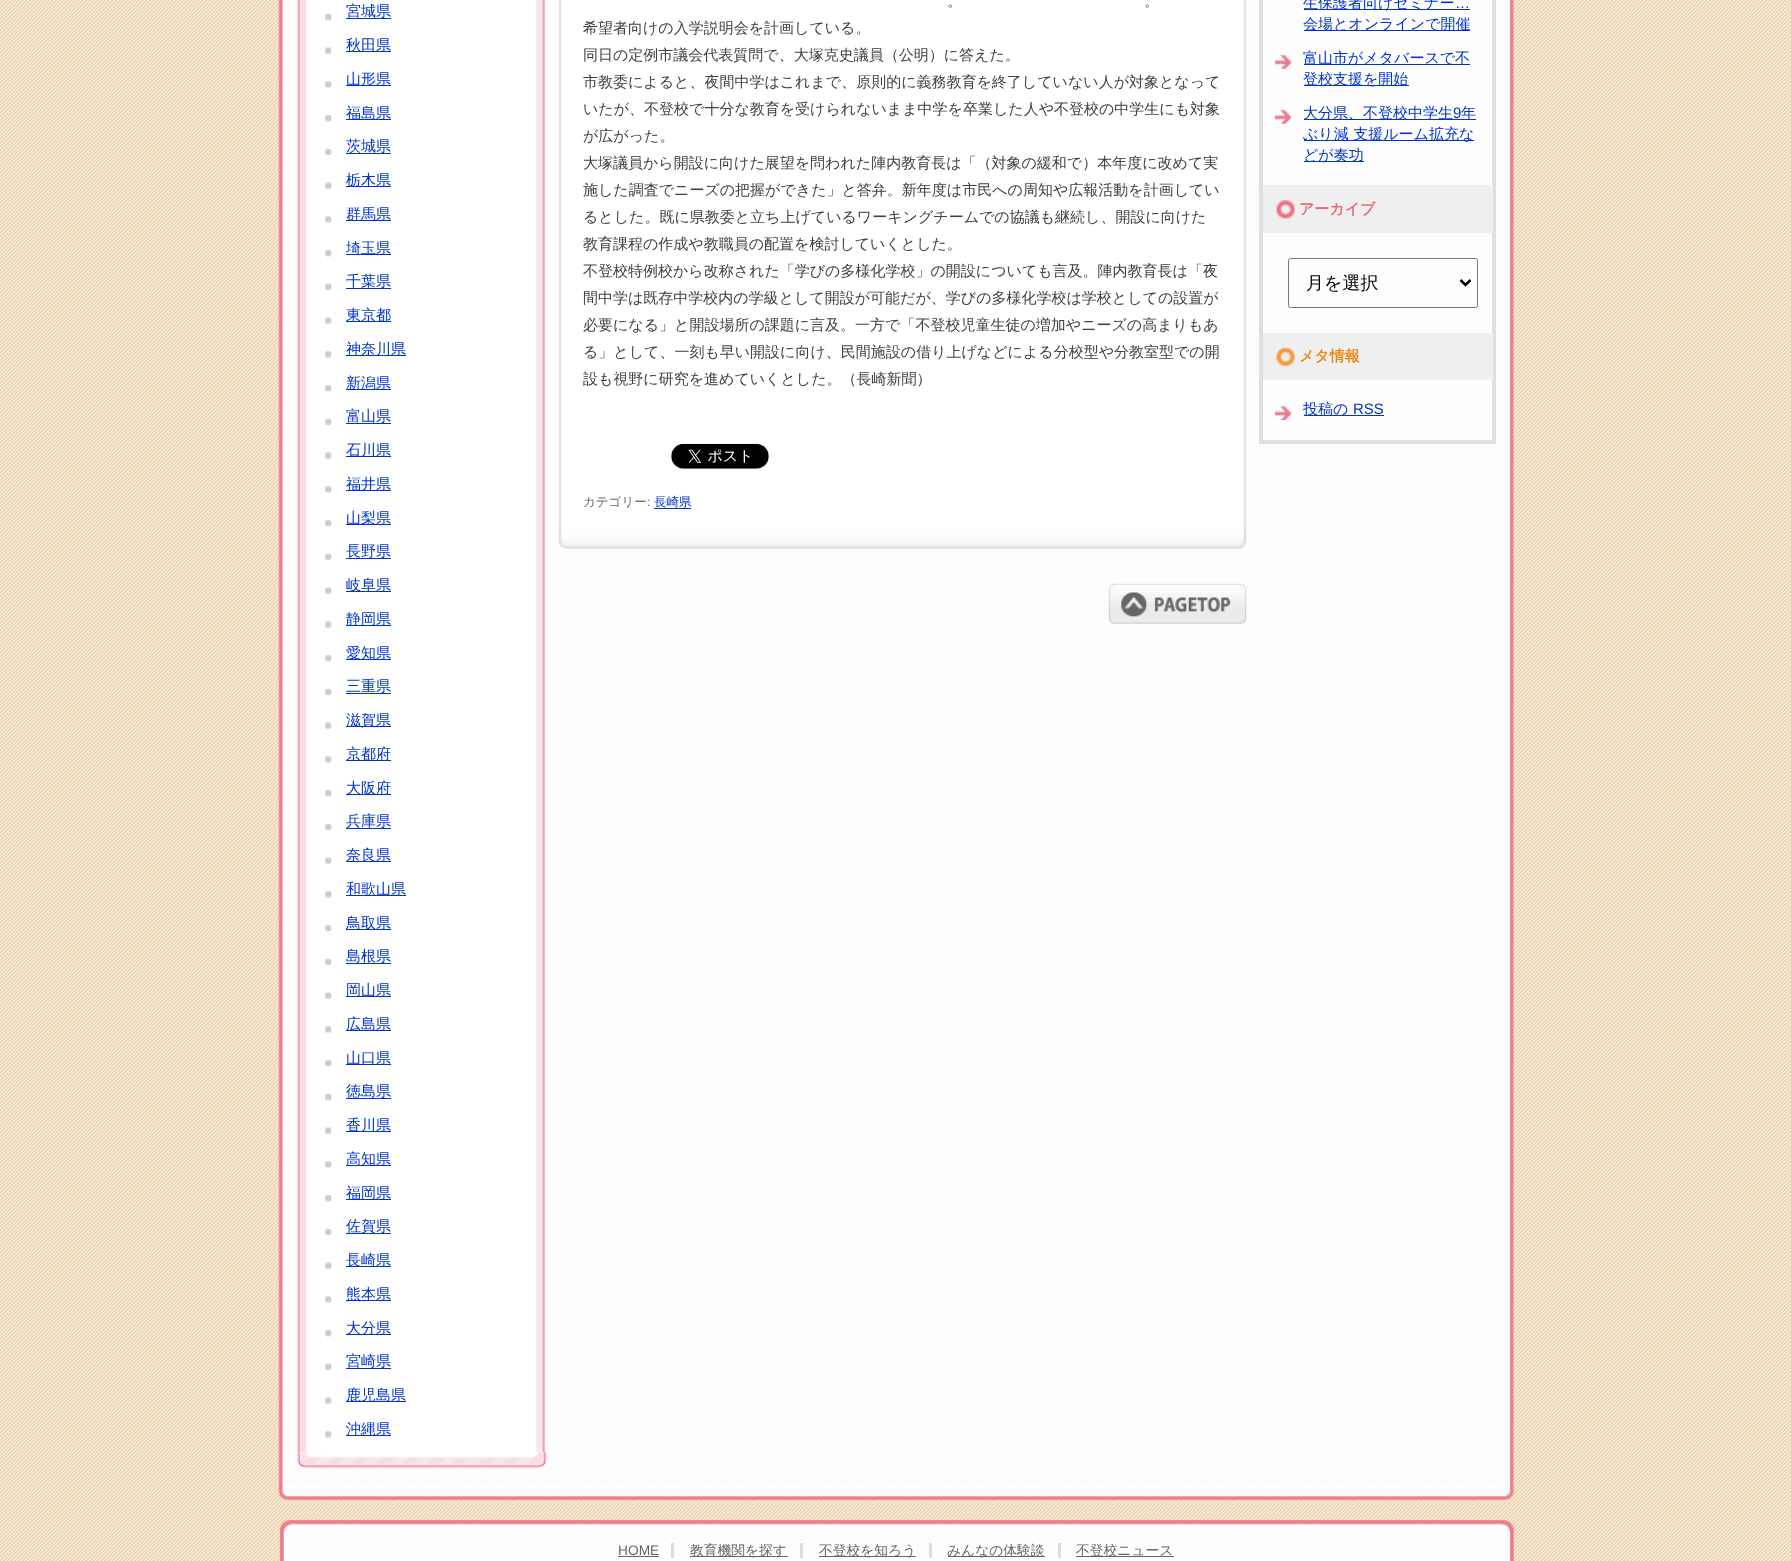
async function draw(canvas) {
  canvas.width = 1791
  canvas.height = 1561
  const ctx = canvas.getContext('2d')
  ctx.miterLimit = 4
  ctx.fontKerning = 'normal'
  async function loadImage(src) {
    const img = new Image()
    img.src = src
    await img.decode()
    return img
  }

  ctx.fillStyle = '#fff'
  ctx.fillRect(0, 0, 1791, 1561)
  ctx.drawImage(await loadImage('image0.png'), 0, 0, 1791, 1561)
  ctx.drawImage(await loadImage('image1.png'), 278, 0, 1236, 1482)
  ctx.drawImage(await loadImage('image2.png'), 297, 0, 249, 1453)
  ctx.drawImage(await loadImage('image3.png'), 325, 13, 7, 8)
  ctx.font = '500 15px WenQuanYi Zen Hei'
  ctx.fillStyle = '#03c'
  ctx.fillText('宮城県', 346, 16)
  ctx.fillRect(346, 18, 45, 1)
  ctx.drawImage(await loadImage('image4.png'), 325, 47, 7, 7)
  ctx.fillRect(346, 51, 45, 1)
  ctx.fillText('秋田県', 346, 50)
  ctx.drawImage(await loadImage('image5.png'), 325, 81, 7, 7)
  ctx.fillRect(346, 85, 45, 1)
  ctx.fillText('山形県', 346, 84)
  ctx.drawImage(await loadImage('image6.png'), 325, 115, 7, 7)
  ctx.fillRect(346, 119, 45, 1)
  ctx.fillText('福島県', 346, 118)
  ctx.drawImage(await loadImage('image3.png'), 325, 148, 7, 8)
  ctx.fillText('茨城県', 346, 151)
  ctx.fillRect(346, 153, 45, 1)
  ctx.drawImage(await loadImage('image4.png'), 325, 182, 7, 7)
  ctx.fillRect(346, 186, 45, 1)
  ctx.fillText('栃木県', 346, 185)
  ctx.drawImage(await loadImage('image5.png'), 325, 216, 7, 7)
  ctx.fillRect(346, 220, 45, 1)
  ctx.fillText('群馬県', 346, 219)
  ctx.drawImage(await loadImage('image6.png'), 325, 250, 7, 7)
  ctx.fillRect(346, 254, 45, 1)
  ctx.fillText('埼玉県', 346, 253)
  ctx.drawImage(await loadImage('image3.png'), 325, 283, 7, 8)
  ctx.fillText('千葉県', 346, 286)
  ctx.fillRect(346, 288, 45, 1)
  ctx.drawImage(await loadImage('image4.png'), 325, 317, 7, 7)
  ctx.fillRect(346, 321, 45, 1)
  ctx.fillText('東京都', 346, 320)
  ctx.drawImage(await loadImage('image5.png'), 325, 351, 7, 7)
  ctx.fillRect(346, 355, 60, 1)
  ctx.fillText('神奈川県', 346, 354)
  ctx.drawImage(await loadImage('image6.png'), 325, 385, 7, 7)
  ctx.fillRect(346, 389, 45, 1)
  ctx.fillText('新潟県', 346, 388)
  ctx.drawImage(await loadImage('image3.png'), 325, 418, 7, 8)
  ctx.fillText('富山県', 346, 421)
  ctx.fillRect(346, 423, 45, 1)
  ctx.drawImage(await loadImage('image4.png'), 325, 452, 7, 7)
  ctx.fillRect(346, 456, 45, 1)
  ctx.fillText('石川県', 346, 455)
  ctx.drawImage(await loadImage('image5.png'), 325, 486, 7, 7)
  ctx.fillRect(346, 490, 45, 1)
  ctx.fillText('福井県', 346, 489)
  ctx.drawImage(await loadImage('image6.png'), 325, 520, 7, 7)
  ctx.fillRect(346, 524, 45, 1)
  ctx.fillText('山梨県', 346, 523)
  ctx.drawImage(await loadImage('image3.png'), 325, 553, 7, 8)
  ctx.fillText('長野県', 346, 556)
  ctx.fillRect(346, 558, 45, 1)
  ctx.drawImage(await loadImage('image4.png'), 325, 587, 7, 7)
  ctx.fillRect(346, 591, 45, 1)
  ctx.fillText('岐阜県', 346, 590)
  ctx.drawImage(await loadImage('image5.png'), 325, 621, 7, 7)
  ctx.fillRect(346, 625, 45, 1)
  ctx.fillText('静岡県', 346, 624)
  ctx.drawImage(await loadImage('image6.png'), 325, 655, 7, 7)
  ctx.fillRect(346, 659, 45, 1)
  ctx.fillText('愛知県', 346, 658)
  ctx.drawImage(await loadImage('image3.png'), 325, 688, 7, 8)
  ctx.fillText('三重県', 346, 691)
  ctx.fillRect(346, 693, 45, 1)
  ctx.drawImage(await loadImage('image4.png'), 325, 722, 7, 7)
  ctx.fillRect(346, 726, 45, 1)
  ctx.fillText('滋賀県', 346, 725)
  ctx.drawImage(await loadImage('image5.png'), 325, 756, 7, 7)
  ctx.fillRect(346, 760, 45, 1)
  ctx.fillText('京都府', 346, 759)
  ctx.drawImage(await loadImage('image6.png'), 325, 790, 7, 7)
  ctx.fillRect(346, 794, 45, 1)
  ctx.fillText('大阪府', 346, 793)
  ctx.drawImage(await loadImage('image3.png'), 325, 823, 7, 8)
  ctx.fillRect(346, 828, 45, 1)
  ctx.fillText('兵庫県', 346, 826)
  ctx.drawImage(await loadImage('image4.png'), 325, 857, 7, 7)
  ctx.fillRect(346, 861, 45, 1)
  ctx.fillText('奈良県', 346, 860)
  ctx.drawImage(await loadImage('image5.png'), 325, 891, 7, 7)
  ctx.fillRect(346, 895, 60, 1)
  ctx.fillText('和歌山県', 346, 894)
  ctx.drawImage(await loadImage('image6.png'), 325, 925, 7, 7)
  ctx.fillRect(346, 929, 45, 1)
  ctx.fillText('鳥取県', 346, 928)
  ctx.drawImage(await loadImage('image3.png'), 325, 958, 7, 8)
  ctx.fillText('島根県', 346, 961)
  ctx.fillRect(346, 963, 45, 1)
  ctx.drawImage(await loadImage('image4.png'), 325, 992, 7, 7)
  ctx.fillRect(346, 996, 45, 1)
  ctx.fillText('岡山県', 346, 995)
  ctx.drawImage(await loadImage('image5.png'), 325, 1026, 7, 7)
  ctx.fillRect(346, 1030, 45, 1)
  ctx.fillText('広島県', 346, 1029)
  ctx.drawImage(await loadImage('image6.png'), 325, 1060, 7, 7)
  ctx.fillRect(346, 1064, 45, 1)
  ctx.fillText('山口県', 346, 1063)
  ctx.drawImage(await loadImage('image3.png'), 325, 1093, 7, 8)
  ctx.fillText('徳島県', 346, 1096)
  ctx.fillRect(346, 1098, 45, 1)
  ctx.drawImage(await loadImage('image4.png'), 325, 1127, 7, 7)
  ctx.fillRect(346, 1131, 45, 1)
  ctx.fillText('香川県', 346, 1130)
  ctx.drawImage(await loadImage('image5.png'), 325, 1161, 7, 7)
  ctx.fillRect(346, 1165, 45, 1)
  ctx.fillText('高知県', 346, 1164)
  ctx.drawImage(await loadImage('image6.png'), 325, 1195, 7, 7)
  ctx.fillRect(346, 1199, 45, 1)
  ctx.fillText('福岡県', 346, 1198)
  ctx.drawImage(await loadImage('image3.png'), 325, 1228, 7, 8)
  ctx.fillRect(346, 1233, 45, 1)
  ctx.fillText('佐賀県', 346, 1231)
  ctx.drawImage(await loadImage('image4.png'), 325, 1262, 7, 7)
  ctx.fillRect(346, 1266, 45, 1)
  ctx.fillText('長崎県', 346, 1265)
  ctx.drawImage(await loadImage('image5.png'), 325, 1296, 7, 7)
  ctx.fillRect(346, 1300, 45, 1)
  ctx.fillText('熊本県', 346, 1299)
  ctx.drawImage(await loadImage('image6.png'), 325, 1330, 7, 7)
  ctx.fillRect(346, 1334, 45, 1)
  ctx.fillText('大分県', 346, 1333)
  ctx.drawImage(await loadImage('image3.png'), 325, 1363, 7, 8)
  ctx.fillText('宮崎県', 346, 1366)
  ctx.fillRect(346, 1368, 45, 1)
  ctx.drawImage(await loadImage('image4.png'), 325, 1397, 7, 7)
  ctx.fillRect(346, 1401, 60, 1)
  ctx.fillText('鹿児島県', 346, 1400)
  ctx.drawImage(await loadImage('image5.png'), 325, 1431, 7, 7)
  ctx.fillRect(346, 1435, 45, 1)
  ctx.fillText('沖縄県', 346, 1434)
  ctx.drawImage(await loadImage('image7.png'), 297, 1452, 250, 16)
  ctx.drawImage(await loadImage('image8.png'), 558, 0, 689, 524)
  ctx.fillStyle = '#404040'
  ctx.fillText('。', 947, 6)
  ctx.fillText('。', 1144, 6)
  ctx.fillText('希望者向けの入学説明会を計画している。', 583, 33)
  ctx.fillText('同日の定例市議会代表質問で、大塚克史議員（公明）に答えた。', 583, 60)
  ctx.fillText('市教委によると、夜間中学はこれまで、原則的に義務教育を終了していない人が対象となって', 583, 87)
  ctx.fillText('いたが、不登校で十分な教育を受けられないまま中学を卒業した人や不登校の中学生にも対象', 583, 114)
  ctx.fillText('が広がった。', 583, 141)
  ctx.fillText('大塚議員から開設に向けた展望を問われた陣内教育長は「（対象の緩和で）本年度に改めて実', 583, 168)
  ctx.fillText('施した調査でニーズの把握ができた」と答弁。新年度は市民への周知や広報活動を計画してい', 583, 195)
  ctx.fillText('るとした。既に県教委と立ち上げているワーキングチームでの協議も継続し、開設に向けた', 583, 222)
  ctx.fillText('教育課程の作成や教職員の配置を検討していくとした。', 583, 249)
  ctx.fillText('不登校特例校から改称された「学びの多様化学校」の開設についても言及。陣内教育長は「夜', 583, 276)
  ctx.fillText('間中学は既存中学校内の学級として開設が可能だが、学びの多様化学校は学校としての設置が', 583, 303)
  ctx.fillText('必要になる」と開設場所の課題に言及。一方で「不登校児童生徒の増加やニーズの高まりもあ', 583, 330)
  ctx.fillText('る」として、一刻も早い開設に向け、民間施設の借り上げなどによる分校型や分教室型での開', 583, 357)
  ctx.fillText('設も視野に研究を進めていくとした。（長崎新聞）', 583, 384)
  ctx.drawImage(await loadImage('image9.png'), 671, 443, 98, 26)
  ctx.font = '500 12.5px WenQuanYi Zen Hei'
  ctx.fillStyle = '#666'
  ctx.fillText('カテゴリー', 583, 506)
  ctx.font = '12.5px Liberation Sans'
  ctx.fillText(':', 647, 506)
  ctx.font = '500 12.5px WenQuanYi Zen Hei'
  ctx.fillStyle = '#03c'
  ctx.fillText('長崎県', 654, 506)
  ctx.fillRect(654, 508, 37, 1)
  ctx.drawImage(await loadImage('image10.png'), 558, 524, 689, 25)
  ctx.drawImage(await loadImage('image11.png'), 1108, 583, 139, 41)
  ctx.strokeStyle = '#dfdfdf'
  ctx.lineWidth = 4
  ctx.strokeRect(1261, -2, 233, 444)
  ctx.fillRect(1304, 9, 166, 1)
  ctx.font = '500 15px WenQuanYi Zen Hei'
  ctx.fillText('生保護者向けセミナー', 1303, 8)
  ctx.font = '15px Liberation Sans'
  ctx.fillText('…', 1455, 8)
  ctx.fillRect(1304, 30, 166, 1)
  ctx.font = '500 15px WenQuanYi Zen Hei'
  ctx.fillText('会場とオンラインで開催', 1303, 29)
  ctx.drawImage(await loadImage('image12.png'), 1275, 55, 17, 14)
  ctx.fillRect(1304, 64, 166, 1)
  ctx.fillText('富山市がメタバースで不', 1303, 63)
  ctx.fillRect(1304, 85, 105, 1)
  ctx.fillText('登校支援を開始', 1303, 84)
  ctx.drawImage(await loadImage('image12.png'), 1275, 110, 17, 14)
  ctx.fillRect(1304, 119, 172, 1)
  ctx.fillText('大分県、不登校中学生', 1303, 118)
  ctx.font = '15px Liberation Sans'
  ctx.fillText('9', 1453, 118)
  ctx.font = '500 15px WenQuanYi Zen Hei'
  ctx.fillText('年', 1461, 118)
  ctx.fillRect(1304, 140, 170, 1)
  ctx.fillText('ぶり減 支援ルーム拡充な', 1303, 139)
  ctx.fillRect(1304, 161, 60, 1)
  ctx.fillText('どが奏功', 1303, 160)
  ctx.fillStyle = '#efefef'
  ctx.fillRect(1263, 185, 230, 48)
  ctx.drawImage(await loadImage('image13.png'), 1276, 200, 19, 19)
  ctx.font = 'bold 15px WenQuanYi Zen Hei'
  ctx.fillStyle = '#e9697c'
  ctx.fillText('アーカイブ', 1299, 214)
  ctx.beginPath()
  ctx.roundRect(1288.5, 258.5, 189, 49, 2)
  ctx.strokeStyle = '#767676'
  ctx.lineWidth = 1
  ctx.stroke()
  ctx.beginPath()
  ctx.moveTo(1460.5, 280)
  ctx.lineTo(1465.5, 285)
  ctx.lineTo(1470.5, 280)
  ctx.strokeStyle = '#000'
  ctx.lineWidth = 2.5
  ctx.stroke()
  ctx.font = '500 18px WenQuanYi Zen Hei'
  ctx.fillStyle = '#000'
  ctx.fillText('月を選択', 1306, 289)
  ctx.fillStyle = '#efefef'
  ctx.fillRect(1263, 333, 230, 47)
  ctx.drawImage(await loadImage('image14.png'), 1276, 347, 19, 20)
  ctx.font = 'bold 15px WenQuanYi Zen Hei'
  ctx.fillStyle = '#f38516'
  ctx.fillText('メタ情報', 1299, 361)
  ctx.drawImage(await loadImage('image15.png'), 1275, 406, 17, 14)
  ctx.fillStyle = '#03c'
  ctx.fillRect(1304, 415, 80, 1)
  ctx.font = '500 15px WenQuanYi Zen Hei'
  ctx.fillText('投稿の', 1303, 414)
  ctx.font = '15px Liberation Sans'
  ctx.fillText('RSS', 1353, 414)
  ctx.drawImage(await loadImage('image16.png'), 278, 1481, 1236, 20)
  ctx.drawImage(await loadImage('image17.png'), 279, 1519, 1235, 42)
  ctx.font = '13.75px Liberation Sans'
  ctx.fillStyle = '#666'
  ctx.fillText('HOME', 618, 1555)
  ctx.fillStyle = '#ddd'
  ctx.fillRect(671, 1543, 3, 15)
  ctx.fillStyle = '#666'
  ctx.fillRect(618, 1556, 41, 1)
  ctx.fillRect(690, 1556, 98, 1)
  ctx.font = '500 13.75px WenQuanYi Zen Hei'
  ctx.fillText('教育機関を探す', 690, 1555)
  ctx.fillStyle = '#ddd'
  ctx.fillRect(800, 1543, 3, 15)
  ctx.fillStyle = '#666'
  ctx.fillRect(819, 1556, 97, 1)
  ctx.fillText('不登校を知ろう', 819, 1555)
  ctx.fillStyle = '#ddd'
  ctx.fillRect(929, 1543, 3, 15)
  ctx.fillStyle = '#666'
  ctx.fillRect(948, 1556, 97, 1)
  ctx.fillText('みんなの体験談', 947, 1555)
  ctx.fillStyle = '#ddd'
  ctx.fillRect(1058, 1543, 3, 15)
  ctx.fillStyle = '#666'
  ctx.fillRect(1076, 1556, 98, 1)
  ctx.fillText('不登校ニュース', 1076, 1555)
}

draw(document.querySelector('canvas'))
